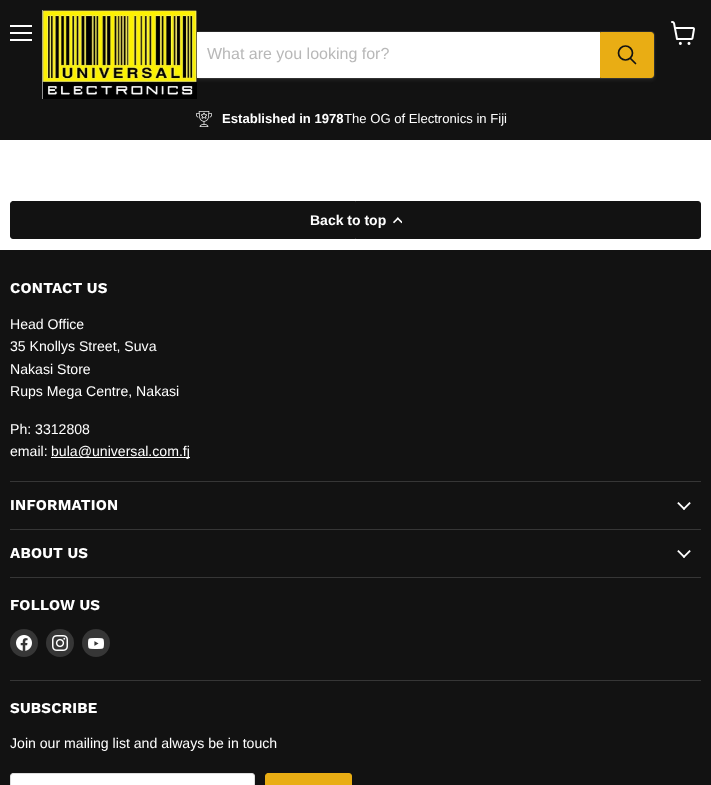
async function draw(canvas) {
  canvas.width = 711
  canvas.height = 785
  const ctx = canvas.getContext('2d')
  ctx.miterLimit = 4
  ctx.fontKerning = 'normal'
  async function loadImage(src) {
    const img = new Image()
    img.src = src
    await img.decode()
    return img
  }

  ctx.fillStyle = '#fff'
  ctx.fillRect(0, 0, 711, 785)
  ctx.fillStyle = '#121212'
  ctx.fillRect(0, 0, 711, 140)
  ctx.fillStyle = '#fff'
  ctx.fillRect(10, 25, 22, 2)
  ctx.fillRect(10, 32, 22, 2)
  ctx.fillRect(10, 39, 22, 2)
  ctx.drawImage(await loadImage('image0.png'), 671, 21, 24, 24)
  ctx.drawImage(await loadImage('image1.png'), 42, 10, 155, 89)
  ctx.fillStyle = '#8080801c'
  ctx.filter = 'blur(1.5px)'
  ctx.beginPath()
  ctx.roundRect(196, 33, 459, 48, 4)
  ctx.fill()
  ctx.filter = 'none'
  ctx.beginPath()
  ctx.roundRect(196.5, 31.5, 458, 47, 3.5)
  ctx.strokeStyle = '#80808033'
  ctx.stroke()
  ctx.fillStyle = '#fff'
  ctx.fillRect(197, 32, 403, 46)
  ctx.font = '16px Liberation Sans'
  ctx.fillStyle = '#b8b8b8'
  ctx.fillText('What are you looking for?', 207, 59)
  ctx.fillStyle = '#e9ad14'
  ctx.beginPath()
  ctx.roundRect(600.5, 32.5, 53, 45, [0, 2.5, 2.5, 0])
  ctx.fill()
  ctx.strokeStyle = '#e9ad14'
  ctx.stroke()
  ctx.beginPath()
  ctx.moveTo(635.5, 63.5)
  ctx.lineTo(630.5, 58.5)
  ctx.strokeStyle = '#121212'
  ctx.lineWidth = 1.7
  ctx.lineCap = 'round'
  ctx.stroke()
  ctx.beginPath()
  ctx.arc(625.5, 53, 7, 0, 2 * Math.PI)
  ctx.stroke()
  ctx.drawImage(await loadImage('image2.png'), 196, 111, 16, 16)
  ctx.font = 'bold 13.1px Liberation Sans'
  ctx.fillStyle = '#fff'
  ctx.fillText('Established in 1978', 222, 123)
  ctx.font = '13.1px Liberation Sans'
  ctx.fillText('The OG of Electronics in Fiji', 344, 123)
  ctx.fillStyle = '#121212'
  ctx.beginPath()
  ctx.roundRect(10.5, 201.5, 690, 37, 2.5)
  ctx.fill()
  ctx.lineWidth = 1
  ctx.stroke()
  ctx.font = 'bold 14px Liberation Sans'
  ctx.fillStyle = '#fff'
  ctx.fillText('Back to top', 310, 225)
  ctx.drawImage(await loadImage('image3.png'), 393, 217, 9, 7)
  ctx.fillStyle = '#121212'
  ctx.fillRect(0, 250, 711, 535)
  ctx.fillStyle = '#363636'
  ctx.fillRect(10, 481, 691, 1)
  ctx.letterSpacing = '0.25px'
  ctx.font = 'bold 15px Work Sans'
  ctx.fillStyle = '#fff'
  ctx.fillText('CONTACT US', 10, 293)
  ctx.letterSpacing = '0px'
  ctx.font = '14.1px Liberation Sans'
  ctx.fillText('Head Office', 10, 329)
  ctx.fillText('35 Knollys Street, Suva', 10, 351)
  ctx.fillText('Nakasi Store', 10, 374)
  ctx.fillText('Rups Mega Centre, Nakasi', 10, 396)
  ctx.fillText('Ph: 3312808', 10, 434)
  ctx.fillText('email:', 10, 456)
  ctx.fillRect(51, 457, 139, 1)
  ctx.fillText('bula@universal.com.fj', 51, 456)
  ctx.fillStyle = '#363636'
  ctx.fillRect(10, 529, 691, 1)
  ctx.letterSpacing = '0.25px'
  ctx.font = 'bold 15px Work Sans'
  ctx.fillStyle = '#fff'
  ctx.fillText('INFORMATION', 10, 510)
  ctx.drawImage(await loadImage('image4.png'), 677, 502, 14, 8)
  ctx.fillStyle = '#363636'
  ctx.fillRect(10, 577, 691, 1)
  ctx.fillStyle = '#fff'
  ctx.fillText('ABOUT US', 10, 558)
  ctx.drawImage(await loadImage('image4.png'), 677, 550, 14, 8)
  ctx.fillStyle = '#363636'
  ctx.fillRect(10, 680, 691, 1)
  ctx.fillStyle = '#fff'
  ctx.fillText('FOLLOW US', 10, 610)
  ctx.fillStyle = '#363636'
  ctx.beginPath()
  ctx.arc(24, 643, 14, 0, 2 * Math.PI)
  ctx.fill()
  ctx.drawImage(await loadImage('image5.png'), 16, 635, 16, 16)
  ctx.beginPath()
  ctx.arc(60, 643, 14, 0, 2 * Math.PI)
  ctx.fill()
  ctx.drawImage(await loadImage('image6.png'), 52, 635, 16, 16)
  ctx.beginPath()
  ctx.arc(96, 643, 14, 0, 2 * Math.PI)
  ctx.fill()
  ctx.drawImage(await loadImage('image7.png'), 88, 638, 16, 11)
  ctx.fillStyle = '#fff'
  ctx.fillText('SUBSCRIBE', 10, 713)
  ctx.letterSpacing = '0px'
  ctx.font = '14.1px Liberation Sans'
  ctx.fillText('Join our mailing list and always be in touch', 10, 748)
  ctx.beginPath()
  ctx.roundRect(10.5, 773.5, 244, 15, 2.5)
  ctx.fill()
  ctx.strokeStyle = '#ddd'
  ctx.stroke()
  ctx.fillStyle = '#e9ad14'
  ctx.beginPath()
  ctx.roundRect(265.5, 773.5, 86, 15, 2.5)
  ctx.fill()
  ctx.strokeStyle = '#e9ad14'
  ctx.stroke()
}

draw(document.querySelector('canvas'))
